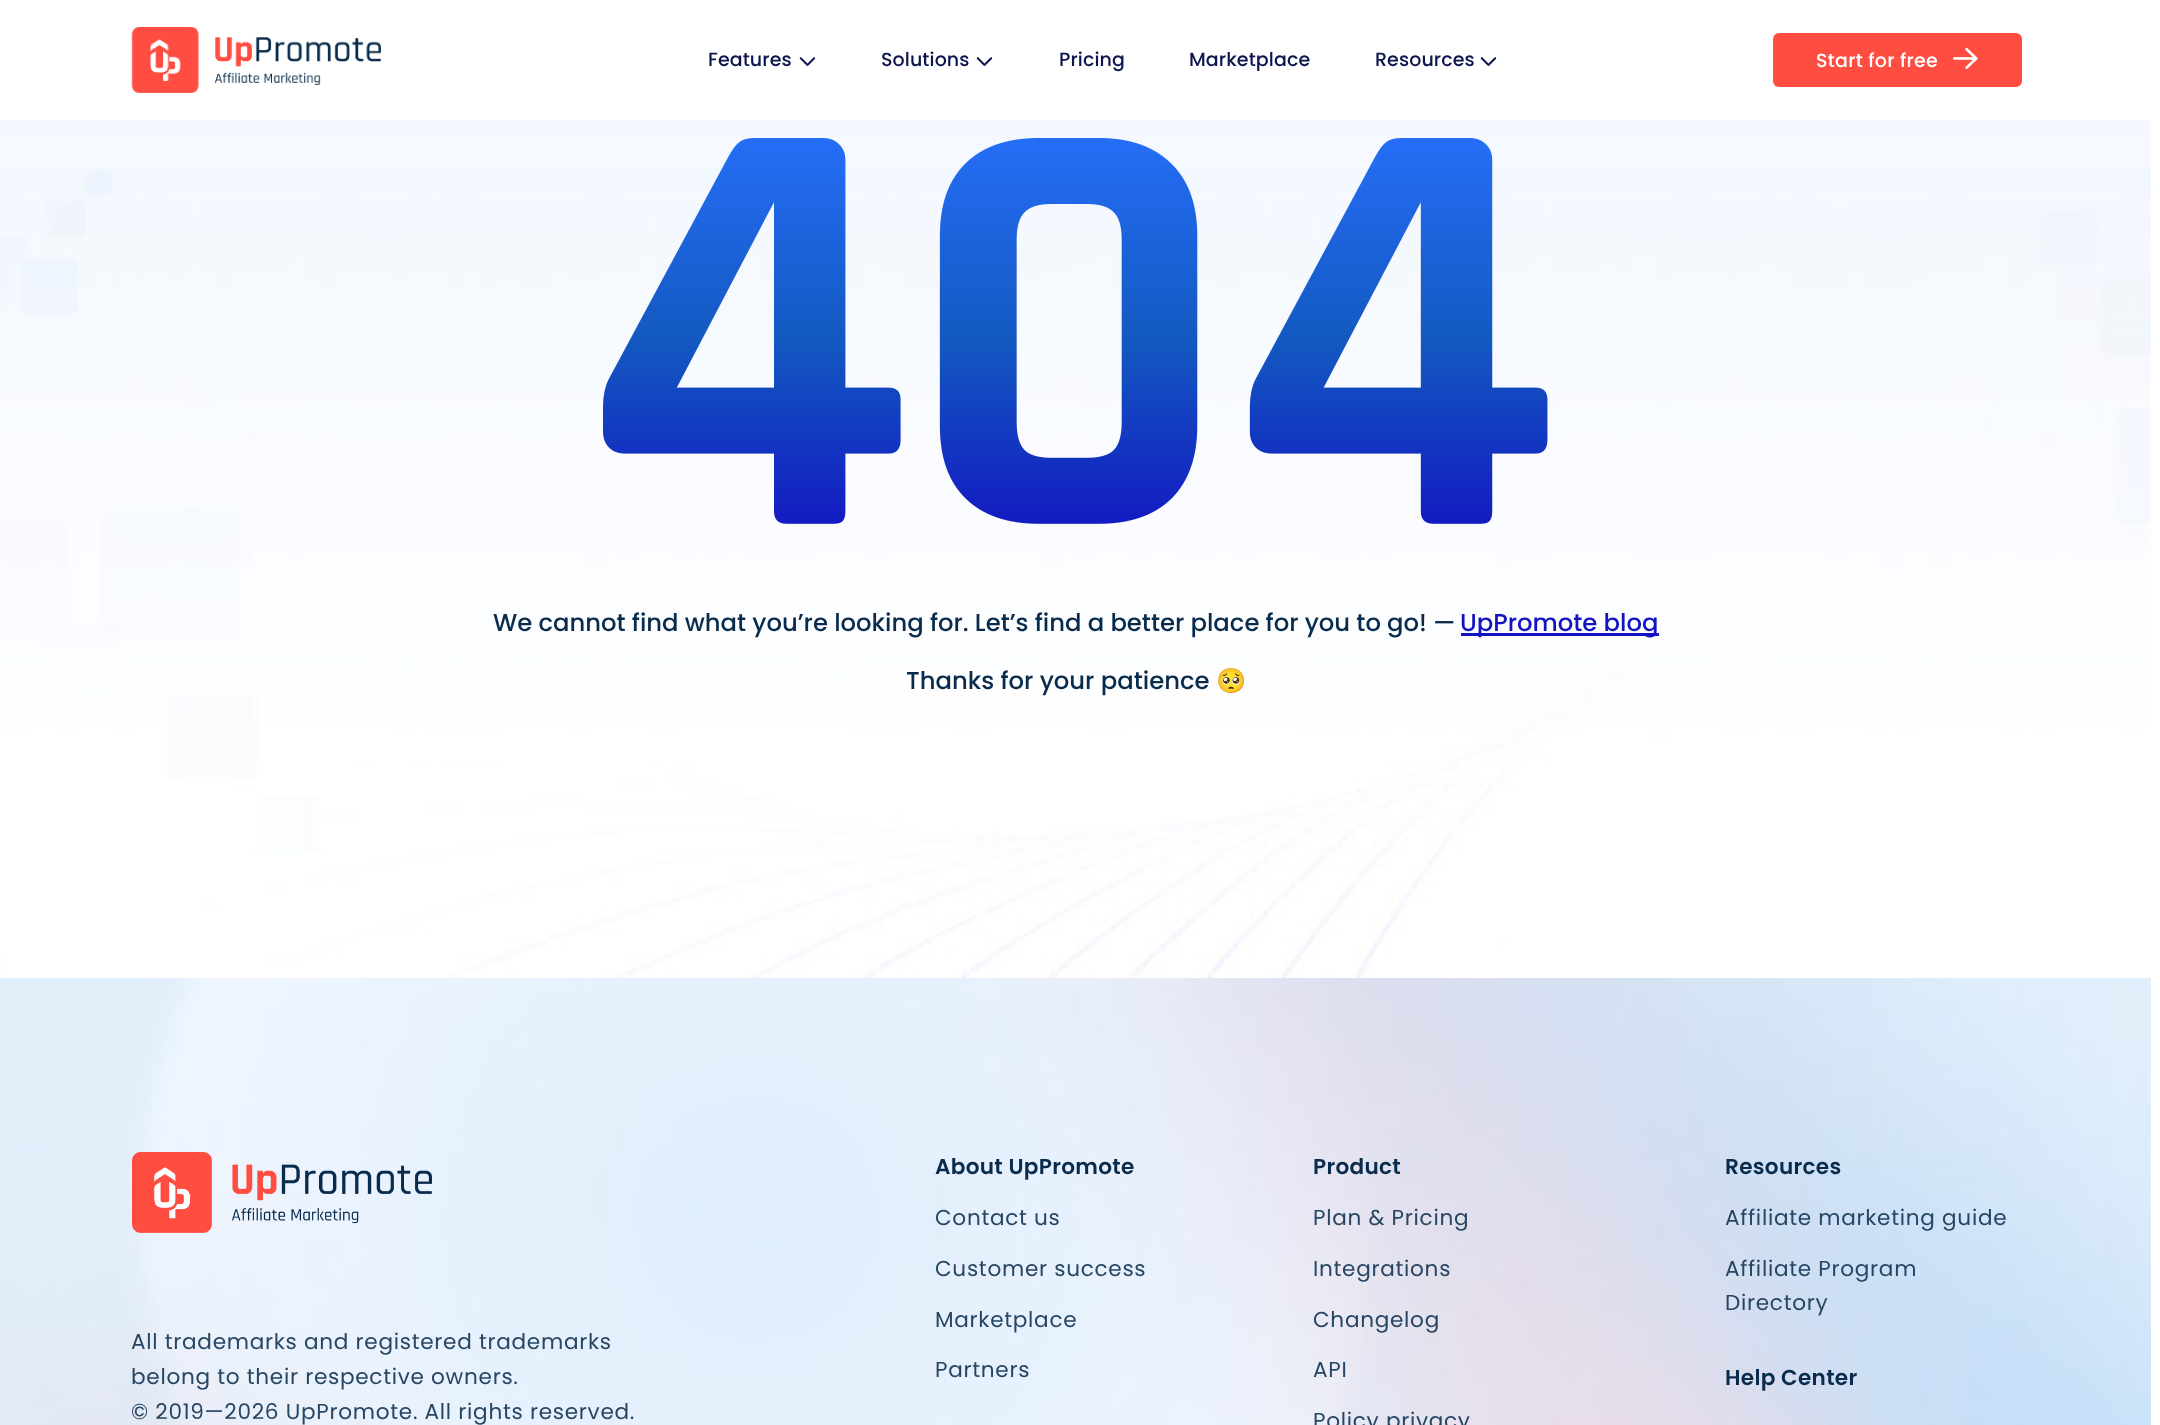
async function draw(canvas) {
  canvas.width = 2160
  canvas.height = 1425
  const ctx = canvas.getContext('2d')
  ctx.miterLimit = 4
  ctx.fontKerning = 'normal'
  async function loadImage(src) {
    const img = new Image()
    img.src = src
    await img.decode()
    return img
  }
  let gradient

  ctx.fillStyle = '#fff'
  ctx.fillRect(0, 0, 2160, 1425)
  ctx.drawImage(await loadImage('image0.png'), 131, 27, 250, 66)
  ctx.letterSpacing = '0.1px'
  ctx.font = '500 19px Poppins'
  ctx.fillStyle = '#0c154e'
  ctx.fillText('Features', 708, 66)
  ctx.drawImage(await loadImage('image1.png'), 799, 57, 17, 9)
  ctx.fillText('Solutions', 881, 66)
  ctx.drawImage(await loadImage('image1.png'), 976, 57, 17, 9)
  ctx.fillText('Pricing', 1059, 66)
  ctx.fillText('Marketplace', 1189, 66)
  ctx.fillText('Resources', 1375, 66)
  ctx.drawImage(await loadImage('image1.png'), 1480, 57, 17, 9)
  ctx.fillStyle = '#ff4e41'
  ctx.beginPath()
  ctx.roundRect(1773, 33, 249, 54, 6)
  ctx.fill()
  ctx.letterSpacing = '0.25px'
  ctx.fillStyle = '#fff'
  ctx.fillText('Start for free', 1816, 67)
  ctx.drawImage(await loadImage('image2.png'), 1953, 48, 25, 21)
  gradient = ctx.createLinearGradient(1076, -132, 1076, 978)
  gradient.addColorStop(0, '#f2f7ff')
  gradient.addColorStop(1, '#fff')
  ctx.fillStyle = gradient
  ctx.fillRect(0, 120, 2151, 47)
  ctx.drawImage(await loadImage('image3.png'), 0, 167, 2151, 811)
  ctx.drawImage(await loadImage('image4.png'), 603, 138, 945, 386)
  ctx.letterSpacing = '0px'
  ctx.wordSpacing = '-0.1px'
  ctx.font = '500 24.3px Poppins'
  ctx.fillStyle = '#092c4c'
  ctx.fillText('We cannot find what you’re looking for. Let’s find a better place for you to go! —', 493, 631)
  ctx.fillStyle = '#1313c1'
  ctx.fillRect(1461, 633, 198, 3)
  ctx.wordSpacing = '0px'
  ctx.fillText('UpPromote blog', 1460, 631)
  ctx.fillStyle = '#092c4c'
  ctx.fillText('Thanks for your patience', 906, 689)
  ctx.font = '24.3px Noto Color Emoji'
  ctx.fillText('🥺', 1216, 689)
  ctx.drawImage(await loadImage('image5.png'), 0, 978, 2151, 447)
  ctx.drawImage(await loadImage('image6.png'), 132, 1152, 300, 81)
  ctx.letterSpacing = '0.7px'
  ctx.font = '21.6px Poppins'
  ctx.fillStyle = '#264663'
  ctx.fillText('All trademarks and registered trademarks', 131, 1349)
  ctx.fillText('belong to their respective owners.', 131, 1384)
  ctx.fillText('© 2019—2026 UpPromote. All rights reserved.', 131, 1419)
  ctx.letterSpacing = '0.3px'
  ctx.font = '600 21.6px Poppins'
  ctx.fillStyle = '#092c4c'
  ctx.fillText('About UpPromote', 935, 1174)
  ctx.letterSpacing = '0.7px'
  ctx.font = '21.6px Poppins'
  ctx.fillStyle = '#264663'
  ctx.fillText('Contact us', 935, 1225)
  ctx.fillText('Customer success', 935, 1276)
  ctx.fillText('Marketplace', 935, 1327)
  ctx.fillText('Partners', 935, 1377)
  ctx.letterSpacing = '0.3px'
  ctx.font = '600 21.6px Poppins'
  ctx.fillStyle = '#092c4c'
  ctx.fillText('Product', 1313, 1174)
  ctx.letterSpacing = '0.7px'
  ctx.font = '21.6px Poppins'
  ctx.fillStyle = '#264663'
  ctx.fillText('Plan & Pricing', 1313, 1225)
  ctx.fillText('Integrations', 1313, 1276)
  ctx.fillText('Changelog', 1313, 1327)
  ctx.fillText('API', 1313, 1377)
  ctx.fillText('Policy privacy', 1313, 1428)
  ctx.letterSpacing = '0.3px'
  ctx.font = '600 21.6px Poppins'
  ctx.fillStyle = '#092c4c'
  ctx.fillText('Resources', 1725, 1174)
  ctx.letterSpacing = '0.7px'
  ctx.font = '21.6px Poppins'
  ctx.fillStyle = '#264663'
  ctx.fillText('Affiliate marketing guide', 1725, 1225)
  ctx.fillText('Affiliate Program', 1725, 1276)
  ctx.fillText('Directory', 1725, 1310)
  ctx.letterSpacing = '0.3px'
  ctx.font = '600 21.6px Poppins'
  ctx.fillStyle = '#092c4c'
  ctx.fillText('Help Center', 1725, 1385)
}

draw(document.querySelector('canvas'))
